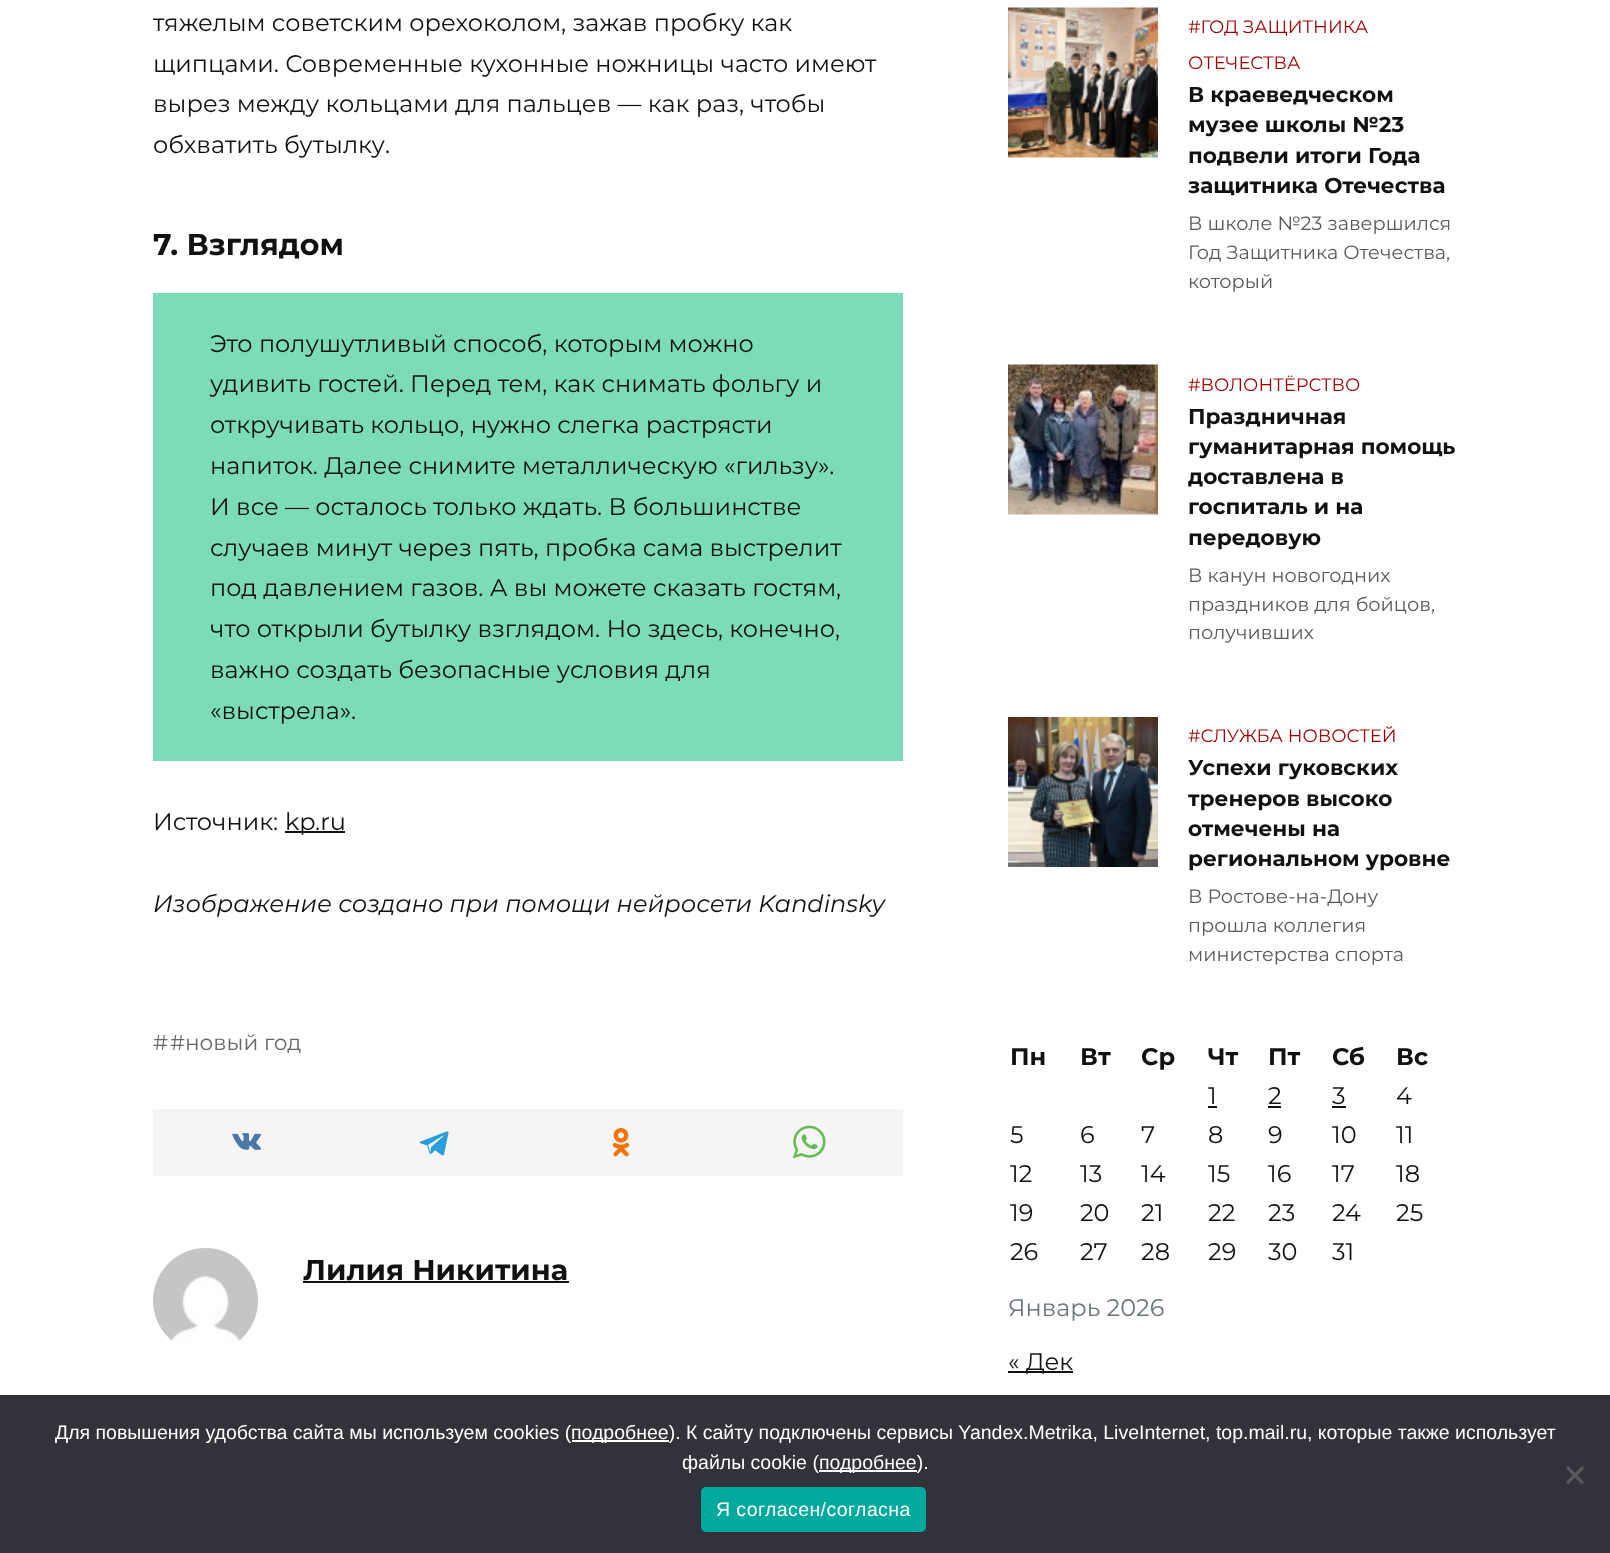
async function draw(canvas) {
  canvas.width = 1610
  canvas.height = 1553
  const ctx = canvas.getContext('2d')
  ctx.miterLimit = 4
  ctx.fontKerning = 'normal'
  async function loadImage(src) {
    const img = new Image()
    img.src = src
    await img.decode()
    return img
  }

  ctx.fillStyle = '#fff'
  ctx.fillRect(0, 0, 1610, 1553)
  ctx.font = '24px Montserrat'
  ctx.fillStyle = '#111'
  ctx.fillText('тяжелым советским орехоколом, зажав пробку как', 153, 31)
  ctx.fillText('щипцами. Современные кухонные ножницы часто имеют', 153, 72)
  ctx.fillText('вырез между кольцами для пальцев — как раз, чтобы', 153, 112)
  ctx.fillText('обхватить бутылку.', 153, 153)
  ctx.font = 'bold 30px Montserrat'
  ctx.fillText('7. Взглядом', 153, 255)
  ctx.fillStyle = '#7bdcb5'
  ctx.fillRect(153, 293, 750, 468)
  ctx.font = '24px Montserrat'
  ctx.fillStyle = '#111'
  ctx.fillText('Это полушутливый способ, которым можно', 210, 352)
  ctx.fillText('удивить гостей. Перед тем, как снимать фольгу и', 210, 392)
  ctx.fillText('откручивать кольцо, нужно слегка растрясти', 210, 433)
  ctx.fillText('напиток. Далее снимите металлическую «гильзу».', 210, 474)
  ctx.fillText('И все — осталось только ждать. В большинстве', 210, 515)
  ctx.fillText('случаев минут через пять, пробка сама выстрелит', 210, 556)
  ctx.fillText('под давлением газов. А вы можете сказать гостям,', 210, 596)
  ctx.fillText('что открыли бутылку взглядом. Но здесь, конечно,', 210, 637)
  ctx.fillText('важно создать безопасные условия для', 210, 678)
  ctx.fillText('«выстрела».', 210, 719)
  ctx.fillText('Источник:', 153, 830)
  ctx.fillRect(285, 831, 60, 2)
  ctx.fillText('kp.ru', 285, 830)
  ctx.font = 'italic 100 24px Montserrat'
  ctx.fillText('Изображение создано при помощи нейросети Kandinsky', 153, 912)
  ctx.font = '21.6px Montserrat'
  ctx.fillStyle = '#666'
  ctx.fillText('#', 153, 1050)
  ctx.fillText('#новый год', 170, 1050)
  ctx.fillStyle = '#f5f5f5'
  ctx.fillRect(153, 1109, 750, 67)
  ctx.drawImage(await loadImage('image0.png'), 232, 1133, 29, 17)
  ctx.drawImage(await loadImage('image1.png'), 419, 1131, 30, 25)
  ctx.drawImage(await loadImage('image2.png'), 612, 1128, 18, 29)
  ctx.drawImage(await loadImage('image3.png'), 792, 1125, 34, 34)
  ctx.drawImage(await loadImage('image4.png'), 153, 1248, 105, 94)
  ctx.font = 'bold 28.75px Montserrat'
  ctx.fillStyle = '#111'
  ctx.fillText('Лилия Никитина', 303, 1280)
  ctx.fillRect(303, 1281, 266, 2)
  ctx.drawImage(await loadImage('image5.png'), 1008, 7, 150, 151)
  ctx.font = '18px Montserrat'
  ctx.fillStyle = '#9b0000'
  ctx.fillText('#ГОД ЗАЩИТНИКА', 1188, 33)
  ctx.fillText('ОТЕЧЕСТВА', 1188, 69)
  ctx.font = 'bold 21.6px Montserrat'
  ctx.fillStyle = '#111'
  ctx.fillText('В краеведческом', 1188, 102)
  ctx.fillText('музее школы №23', 1188, 132)
  ctx.fillText('подвели итоги Года', 1188, 163)
  ctx.fillText('защитника Отечества', 1188, 193)
  ctx.font = '19.25px Montserrat'
  ctx.fillStyle = '#585858'
  ctx.fillText('В школе №23 завершился', 1188, 230)
  ctx.fillText('Год Защитника Отечества,', 1188, 259)
  ctx.fillText('который', 1188, 288)
  ctx.drawImage(await loadImage('image6.png'), 1008, 364, 150, 151)
  ctx.font = '18px Montserrat'
  ctx.fillStyle = '#9b0000'
  ctx.fillText('#ВОЛОНТЁРСТВО', 1188, 391)
  ctx.font = 'bold 21.6px Montserrat'
  ctx.fillStyle = '#111'
  ctx.fillText('Праздничная', 1188, 424)
  ctx.fillText('гуманитарная помощь', 1188, 454)
  ctx.fillText('доставлена в', 1188, 484)
  ctx.fillText('госпиталь и на', 1188, 514)
  ctx.fillText('передовую', 1188, 545)
  ctx.font = '19.25px Montserrat'
  ctx.fillStyle = '#585858'
  ctx.fillText('В канун новогодних', 1188, 582)
  ctx.fillText('праздников для бойцов,', 1188, 611)
  ctx.fillText('получивших', 1188, 639)
  ctx.drawImage(await loadImage('image7.png'), 1008, 717, 150, 150)
  ctx.font = '18px Montserrat'
  ctx.fillStyle = '#9b0000'
  ctx.fillText('#СЛУЖБА НОВОСТЕЙ', 1188, 742)
  ctx.font = 'bold 21.6px Montserrat'
  ctx.fillStyle = '#111'
  ctx.fillText('Успехи гуковских', 1188, 775)
  ctx.fillText('тренеров высоко', 1188, 806)
  ctx.fillText('отмечены на', 1188, 836)
  ctx.fillText('региональном уровне', 1188, 866)
  ctx.font = '19.25px Montserrat'
  ctx.fillStyle = '#585858'
  ctx.fillText('В Ростове-на-Дону', 1188, 903)
  ctx.fillText('прошла коллегия', 1188, 932)
  ctx.fillText('министерства спорта', 1188, 961)
  ctx.font = 'bold 24px Montserrat'
  ctx.fillStyle = '#111'
  ctx.fillText('Пн', 1010, 1065)
  ctx.fillText('Вт', 1080, 1065)
  ctx.fillText('Ср', 1141, 1065)
  ctx.fillText('Чт', 1208, 1065)
  ctx.fillText('Пт', 1268, 1065)
  ctx.fillText('Сб', 1332, 1065)
  ctx.fillText('Вс', 1396, 1065)
  ctx.font = '24px Montserrat'
  ctx.fillText('1', 1208, 1104)
  ctx.fillRect(1208, 1106, 9, 2)
  ctx.fillText('2', 1268, 1104)
  ctx.fillRect(1268, 1106, 13, 2)
  ctx.fillText('3', 1332, 1104)
  ctx.fillRect(1332, 1106, 14, 2)
  ctx.fillText('4', 1396, 1104)
  ctx.fillText('5', 1010, 1143)
  ctx.fillText('6', 1080, 1143)
  ctx.fillText('7', 1141, 1143)
  ctx.fillText('8', 1208, 1143)
  ctx.fillText('9', 1268, 1143)
  ctx.fillText('10', 1332, 1143)
  ctx.fillText('11', 1396, 1143)
  ctx.fillText('12', 1010, 1182)
  ctx.fillText('13', 1080, 1182)
  ctx.fillText('14', 1141, 1182)
  ctx.fillText('15', 1208, 1182)
  ctx.fillText('16', 1268, 1182)
  ctx.fillText('17', 1332, 1182)
  ctx.fillText('18', 1396, 1182)
  ctx.fillText('19', 1010, 1221)
  ctx.fillText('20', 1080, 1221)
  ctx.fillText('21', 1141, 1221)
  ctx.fillText('22', 1208, 1221)
  ctx.fillText('23', 1268, 1221)
  ctx.fillText('24', 1332, 1221)
  ctx.fillText('25', 1396, 1221)
  ctx.fillText('26', 1010, 1260)
  ctx.fillText('27', 1080, 1260)
  ctx.fillText('28', 1141, 1260)
  ctx.fillText('29', 1208, 1260)
  ctx.fillText('30', 1268, 1260)
  ctx.fillText('31', 1332, 1260)
  ctx.fillStyle = '#6c757d'
  ctx.fillText('Январь 2026', 1008, 1316)
  ctx.fillStyle = '#111'
  ctx.fillRect(1008, 1371, 65, 2)
  ctx.fillText('« Дек', 1008, 1370)
  ctx.fillStyle = '#32323a'
  ctx.fillRect(0, 1395, 1610, 158)
  ctx.font = '19.5px Liberation Sans'
  ctx.fillStyle = '#fff'
  ctx.fillText('Для повышения удобства сайта мы используем cookies (', 55, 1439)
  ctx.fillRect(572, 1440, 97, 2)
  ctx.fillText('подробнее). К сайту подключены сервисы Yandex.Metrika, LiveInternet, top.mail.ru, которые также использует', 571, 1439)
  ctx.fillText('файлы cookie (', 682, 1469)
  ctx.fillRect(819, 1470, 98, 2)
  ctx.fillText('подробнее).', 819, 1469)
  ctx.fillStyle = '#59595d'
  ctx.beginPath()
  ctx.moveTo(1582, 1466)
  ctx.lineTo(1584, 1468.5)
  ctx.lineTo(1568, 1484.5)
  ctx.lineTo(1566, 1482)
  ctx.closePath()
  ctx.fill()
  ctx.beginPath()
  ctx.moveTo(1566, 1468.5)
  ctx.lineTo(1568, 1466)
  ctx.lineTo(1584, 1482)
  ctx.lineTo(1582, 1484.5)
  ctx.closePath()
  ctx.fill()
  ctx.fillStyle = '#00a99d'
  ctx.beginPath()
  ctx.roundRect(701, 1487, 225, 45, 5)
  ctx.fill()
  ctx.letterSpacing = '0.4px'
  ctx.fillStyle = '#fff'
  ctx.fillText('Я согласен/согласна', 716, 1516)
}

draw(document.querySelector('canvas'))
